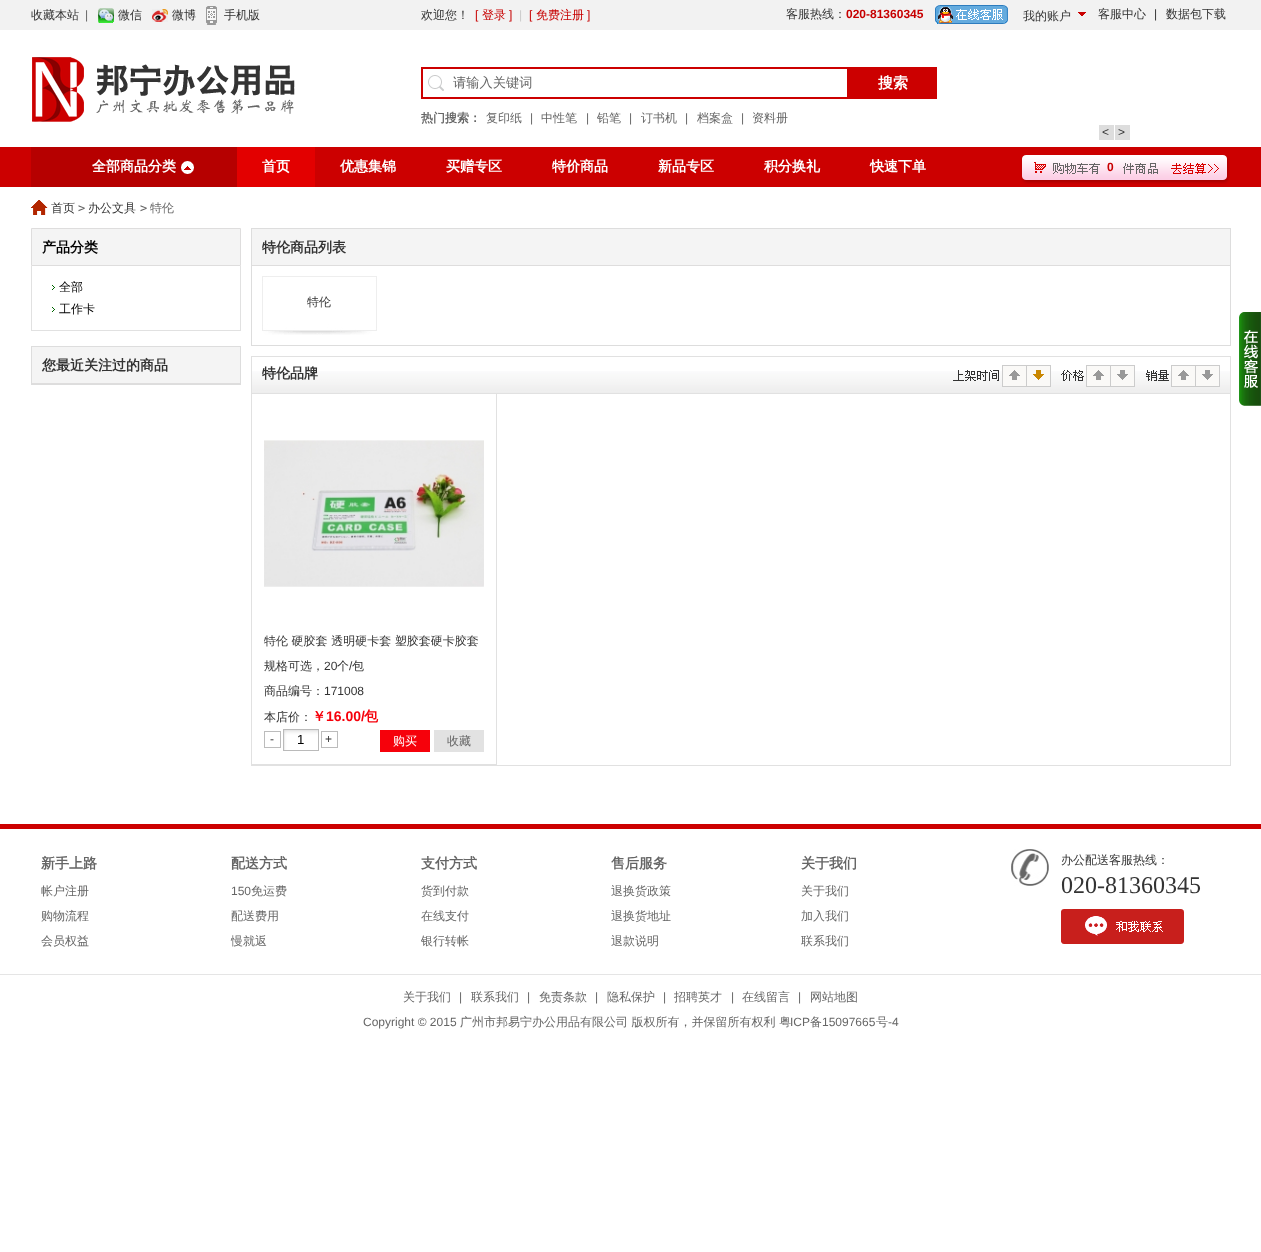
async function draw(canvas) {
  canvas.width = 1261
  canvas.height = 1252
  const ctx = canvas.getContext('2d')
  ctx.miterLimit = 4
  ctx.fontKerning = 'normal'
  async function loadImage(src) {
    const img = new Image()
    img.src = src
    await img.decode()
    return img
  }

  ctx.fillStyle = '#fff'
  ctx.fillRect(0, 0, 1261, 1252)
  ctx.fillStyle = '#f2f2f2'
  ctx.fillRect(0, 0, 1261, 30)
  ctx.font = '500 12px WenQuanYi Zen Hei'
  ctx.fillStyle = '#333'
  ctx.fillText('收藏本站', 31, 19)
  ctx.font = '12px Liberation Sans'
  ctx.fillStyle = '#666'
  ctx.fillText('|', 85, 19)
  ctx.drawImage(await loadImage('image0.png'), 98, 8, 16, 15)
  ctx.font = '500 12px WenQuanYi Zen Hei'
  ctx.fillStyle = '#333'
  ctx.fillText('微信', 118, 19)
  ctx.drawImage(await loadImage('image1.png'), 152, 9, 16, 13)
  ctx.fillText('微博', 172, 19)
  ctx.drawImage(await loadImage('image2.png'), 206, 6, 11, 19)
  ctx.fillText('手机版', 224, 19)
  ctx.fillText('欢迎您！', 421, 19)
  ctx.font = '12px Liberation Sans'
  ctx.fillStyle = '#c70001'
  ctx.fillText('[', 475, 19)
  ctx.font = '500 12px WenQuanYi Zen Hei'
  ctx.fillText('登录', 482, 19)
  ctx.font = '12px Liberation Sans'
  ctx.fillText(']', 509, 19)
  ctx.fillStyle = '#ccc'
  ctx.fillText('|', 519, 19)
  ctx.fillStyle = '#c70001'
  ctx.fillText('[', 529, 19)
  ctx.font = '500 12px WenQuanYi Zen Hei'
  ctx.fillText('免费注册', 536, 19)
  ctx.font = '12px Liberation Sans'
  ctx.fillText(']', 587, 19)
  ctx.font = '500 12px WenQuanYi Zen Hei'
  ctx.fillStyle = '#333'
  ctx.fillText('客服热线：', 786, 18)
  ctx.font = 'bold 12px Liberation Sans'
  ctx.fillStyle = '#c70001'
  ctx.fillText('020-81360345', 846, 18)
  ctx.drawImage(await loadImage('image3.png'), 935, 5, 73, 19)
  ctx.drawImage(await loadImage('image4.png'), 1078, 12, 8, 4)
  ctx.font = '500 12px WenQuanYi Zen Hei'
  ctx.fillStyle = '#333'
  ctx.fillText('我的账户', 1023, 20)
  ctx.fillText('客服中心', 1098, 18)
  ctx.font = '12px Liberation Sans'
  ctx.fillText('|', 1154, 18)
  ctx.font = '500 12px WenQuanYi Zen Hei'
  ctx.fillText('数据包下载', 1166, 18)
  ctx.drawImage(await loadImage('image5.png'), 32, 57, 263, 65)
  ctx.drawImage(await loadImage('image6.png'), 428, 75, 16, 16)
  ctx.strokeStyle = '#c00'
  ctx.lineWidth = 2
  ctx.strokeRect(422, 68, 426, 30)
  ctx.font = '500 13.25px WenQuanYi Zen Hei'
  ctx.fillStyle = '#666'
  ctx.fillText('请输入关键词', 453, 87)
  ctx.fillStyle = '#c00'
  ctx.fillRect(849, 67, 88, 32)
  ctx.font = 'bold 15px WenQuanYi Zen Hei'
  ctx.fillStyle = '#fff'
  ctx.fillText('搜索', 878, 88)
  ctx.font = 'bold 12px WenQuanYi Zen Hei'
  ctx.fillStyle = '#666'
  ctx.fillText('热门搜索：', 421, 122)
  ctx.font = '500 12px WenQuanYi Zen Hei'
  ctx.fillText('复印纸', 486, 122)
  ctx.font = '12px Liberation Sans'
  ctx.fillText('|', 530, 122)
  ctx.font = '500 12px WenQuanYi Zen Hei'
  ctx.fillText('中性笔', 541, 122)
  ctx.font = '12px Liberation Sans'
  ctx.fillText('|', 586, 122)
  ctx.font = '500 12px WenQuanYi Zen Hei'
  ctx.fillText('铅笔', 597, 122)
  ctx.font = '12px Liberation Sans'
  ctx.fillText('|', 629, 122)
  ctx.font = '500 12px WenQuanYi Zen Hei'
  ctx.fillText('订书机', 641, 122)
  ctx.font = '12px Liberation Sans'
  ctx.fillText('|', 685, 122)
  ctx.font = '500 12px WenQuanYi Zen Hei'
  ctx.fillText('档案盒', 697, 122)
  ctx.font = '12px Liberation Sans'
  ctx.fillText('|', 741, 122)
  ctx.font = '500 12px WenQuanYi Zen Hei'
  ctx.fillText('资料册', 752, 122)
  ctx.fillStyle = '#ddd'
  ctx.fillRect(1099, 125, 15, 15)
  ctx.font = '12px Liberation Sans'
  ctx.fillStyle = '#333'
  ctx.fillText('<', 1102, 136)
  ctx.fillStyle = '#ddd'
  ctx.fillRect(1115, 125, 15, 15)
  ctx.fillStyle = '#333'
  ctx.fillText('>', 1118, 136)
  ctx.fillStyle = '#c00'
  ctx.fillRect(0, 147, 1261, 40)
  ctx.fillStyle = '#b60000'
  ctx.fillRect(31, 147, 206, 40)
  ctx.drawImage(await loadImage('image7.png'), 181, 161, 13, 13)
  ctx.font = 'bold 14px WenQuanYi Zen Hei'
  ctx.fillStyle = '#fff'
  ctx.fillText('全部商品分类', 92, 171)
  ctx.fillStyle = '#e30000'
  ctx.fillRect(237, 147, 78, 40)
  ctx.fillStyle = '#fff'
  ctx.fillText('首页', 262, 171)
  ctx.fillText('优惠集锦', 340, 171)
  ctx.fillText('买赠专区', 446, 171)
  ctx.fillText('特价商品', 552, 171)
  ctx.fillText('新品专区', 658, 171)
  ctx.fillText('积分换礼', 764, 171)
  ctx.fillText('快速下单', 870, 171)
  ctx.drawImage(await loadImage('image8.png'), 1021, 155, 209, 29)
  ctx.font = 'bold 12px Liberation Sans'
  ctx.fillStyle = '#c70001'
  ctx.fillText('0', 1107, 171)
  ctx.drawImage(await loadImage('image9.png'), 31, 200, 17, 15)
  ctx.font = '500 12px WenQuanYi Zen Hei'
  ctx.fillStyle = '#333'
  ctx.fillText('首页', 51, 212)
  ctx.font = '12px DejaVu Sans Mono'
  ctx.fillStyle = '#666'
  ctx.fillText('>', 78, 212)
  ctx.font = '500 12px WenQuanYi Zen Hei'
  ctx.fillStyle = '#333'
  ctx.fillText('办公文具', 88, 212)
  ctx.font = '12px DejaVu Sans Mono'
  ctx.fillStyle = '#666'
  ctx.fillText('>', 140, 212)
  ctx.font = '500 12px WenQuanYi Zen Hei'
  ctx.fillText('特伦', 150, 212)
  ctx.fillStyle = '#f4f4f4'
  ctx.beginPath()
  ctx.rect(31.5, 228.5, 209, 37)
  ctx.fill()
  ctx.strokeStyle = '#dedddd'
  ctx.lineWidth = 1
  ctx.stroke()
  ctx.font = 'bold 14px WenQuanYi Zen Hei'
  ctx.fillStyle = '#000'
  ctx.fillText('产品分类', 42, 252)
  ctx.fillStyle = '#e1e1e1'
  ctx.fillRect(240, 266, 1, 65)
  ctx.fillRect(31, 330, 210, 1)
  ctx.fillRect(31, 266, 1, 65)
  ctx.drawImage(await loadImage('image10.png'), 52, 285, 3, 5)
  ctx.font = '500 12px WenQuanYi Zen Hei'
  ctx.fillStyle = '#000'
  ctx.fillText('全部', 59, 291)
  ctx.drawImage(await loadImage('image10.png'), 52, 307, 3, 5)
  ctx.fillText('工作卡', 59, 313)
  ctx.strokeStyle = '#ddd'
  ctx.strokeRect(31.5, 346.5, 209, 38)
  ctx.fillStyle = '#f4f4f4'
  ctx.fillRect(32, 347, 208, 36)
  ctx.fillStyle = '#dedddd'
  ctx.fillRect(32, 383, 208, 1)
  ctx.font = 'bold 14px WenQuanYi Zen Hei'
  ctx.fillStyle = '#333'
  ctx.fillText('您最近关注过的商品', 42, 370)
  ctx.strokeRect(251.5, 228.5, 979, 117)
  ctx.fillStyle = '#f4f4f4'
  ctx.fillRect(252, 229, 978, 36)
  ctx.fillStyle = '#dedddd'
  ctx.fillRect(252, 265, 978, 1)
  ctx.fillStyle = '#333'
  ctx.fillText('特伦商品列表', 262, 252)
  ctx.drawImage(await loadImage('image11.png'), 262, 276, 115, 59)
  ctx.font = '500 12px WenQuanYi Zen Hei'
  ctx.fillText('特伦', 307, 306)
  ctx.drawImage(await loadImage('image12.png'), 252, 371, 978, 22)
  ctx.strokeStyle = '#e1e1e1'
  ctx.strokeRect(251.5, 356.5, 979, 37)
  ctx.font = 'bold 14px WenQuanYi Zen Hei'
  ctx.fillText('特伦品牌', 262, 378)
  ctx.drawImage(await loadImage('image13.png'), 953, 365, 98, 22)
  ctx.drawImage(await loadImage('image14.png'), 1061, 365, 74, 22)
  ctx.drawImage(await loadImage('image15.png'), 1146, 365, 74, 22)
  ctx.fillStyle = '#e1e1e1'
  ctx.fillRect(1230, 394, 1, 372)
  ctx.fillRect(251, 765, 980, 1)
  ctx.fillRect(251, 394, 1, 372)
  ctx.fillRect(496, 394, 1, 371)
  ctx.fillRect(252, 764, 245, 1)
  ctx.drawImage(await loadImage('image16.png'), 264, 440, 220, 147)
  ctx.save()
  ctx.beginPath()
  ctx.rect(264, 629, 220, 50)
  ctx.clip()
  ctx.font = '500 12px WenQuanYi Zen Hei'
  ctx.fillStyle = '#333'
  ctx.fillText('特伦 硬胶套 透明硬卡套 塑胶套硬卡胶套', 264, 645)
  ctx.restore()
  ctx.font = '500 12px WenQuanYi Zen Hei'
  ctx.fillStyle = '#333'
  ctx.fillText('规格可选，', 264, 670)
  ctx.font = '12px Liberation Sans'
  ctx.fillText('20', 324, 670)
  ctx.font = '500 12px WenQuanYi Zen Hei'
  ctx.fillText('个', 337, 670)
  ctx.font = '12px Liberation Sans'
  ctx.fillText('/', 349, 670)
  ctx.font = '500 12px WenQuanYi Zen Hei'
  ctx.fillText('包', 352, 670)
  ctx.fillText('商品编号：', 264, 695)
  ctx.font = '12px Liberation Sans'
  ctx.fillText('171008', 324, 695)
  ctx.font = '500 12px WenQuanYi Zen Hei'
  ctx.fillText('本店价：', 264, 721)
  ctx.font = 'bold 14px WenQuanYi Zen Hei'
  ctx.fillStyle = '#f6010b'
  ctx.fillText('￥', 312, 721)
  ctx.font = 'bold 14px Liberation Sans'
  ctx.fillText('16.00/', 326, 721)
  ctx.font = 'bold 14px WenQuanYi Zen Hei'
  ctx.fillText('包', 364, 721)
  ctx.strokeStyle = '#bcbcbc'
  ctx.strokeRect(264.5, 731.5, 16, 16)
  ctx.font = '12px Liberation Sans'
  ctx.fillStyle = '#333'
  ctx.fillText('-', 270, 743)
  ctx.drawImage(await loadImage('image17.png'), 284, 730, 34, 20)
  ctx.strokeStyle = '#bababa'
  ctx.strokeRect(283.5, 729.5, 35, 21)
  ctx.font = '13.25px Liberation Sans'
  ctx.fillStyle = '#000'
  ctx.fillText('1', 297, 744)
  ctx.strokeStyle = '#bcbcbc'
  ctx.strokeRect(321.5, 731.5, 16, 16)
  ctx.font = '12px Liberation Sans'
  ctx.fillStyle = '#333'
  ctx.fillText('+', 325, 743)
  ctx.fillStyle = '#f6010b'
  ctx.fillRect(380, 730, 50, 22)
  ctx.font = '500 12px WenQuanYi Zen Hei'
  ctx.fillStyle = '#fff'
  ctx.fillText('购买', 393, 745)
  ctx.fillStyle = '#e2e2e2'
  ctx.fillRect(434, 730, 50, 22)
  ctx.fillStyle = '#666'
  ctx.fillText('收藏', 447, 745)
  ctx.drawImage(await loadImage('image18.png'), 1239, 312, 22, 94)
  ctx.fillStyle = '#c00'
  ctx.fillRect(0, 824, 1261, 5)
  ctx.fillStyle = '#e5e5e5'
  ctx.fillRect(0, 974, 1261, 1)
  ctx.font = 'bold 14px WenQuanYi Zen Hei'
  ctx.fillStyle = '#666'
  ctx.fillText('新手上路', 41, 868)
  ctx.font = '500 12px WenQuanYi Zen Hei'
  ctx.fillText('帐户注册', 41, 895)
  ctx.fillText('购物流程', 41, 920)
  ctx.fillText('会员权益', 41, 945)
  ctx.font = 'bold 14px WenQuanYi Zen Hei'
  ctx.fillText('配送方式', 231, 868)
  ctx.font = '12px Liberation Sans'
  ctx.fillText('150', 231, 895)
  ctx.font = '500 12px WenQuanYi Zen Hei'
  ctx.fillText('免运费', 251, 895)
  ctx.fillText('配送费用', 231, 920)
  ctx.fillText('慢就返', 231, 945)
  ctx.font = 'bold 14px WenQuanYi Zen Hei'
  ctx.fillText('支付方式', 421, 868)
  ctx.font = '500 12px WenQuanYi Zen Hei'
  ctx.fillText('货到付款', 421, 895)
  ctx.fillText('在线支付', 421, 920)
  ctx.fillText('银行转帐', 421, 945)
  ctx.font = 'bold 14px WenQuanYi Zen Hei'
  ctx.fillText('售后服务', 611, 868)
  ctx.font = '500 12px WenQuanYi Zen Hei'
  ctx.fillText('退换货政策', 611, 895)
  ctx.fillText('退换货地址', 611, 920)
  ctx.fillText('退款说明', 611, 945)
  ctx.font = 'bold 14px WenQuanYi Zen Hei'
  ctx.fillText('关于我们', 801, 868)
  ctx.font = '500 12px WenQuanYi Zen Hei'
  ctx.fillText('关于我们', 801, 895)
  ctx.fillText('加入我们', 801, 920)
  ctx.fillText('联系我们', 801, 945)
  ctx.drawImage(await loadImage('image19.png'), 1011, 849, 38, 37)
  ctx.fillStyle = '#333'
  ctx.fillText('办公配送客服热线：', 1061, 864)
  ctx.font = '24px Liberation Serif'
  ctx.fillText('020-81360345', 1061, 893)
  ctx.drawImage(await loadImage('image20.png'), 1061, 909, 123, 35)
  ctx.font = '500 12px WenQuanYi Zen Hei'
  ctx.fillStyle = '#666'
  ctx.fillText('关于我们', 403, 1001)
  ctx.font = '12px Liberation Sans'
  ctx.fillText('|', 459, 1001)
  ctx.font = '500 12px WenQuanYi Zen Hei'
  ctx.fillText('联系我们', 471, 1001)
  ctx.font = '12px Liberation Sans'
  ctx.fillText('|', 527, 1001)
  ctx.font = '500 12px WenQuanYi Zen Hei'
  ctx.fillText('免责条款', 539, 1001)
  ctx.font = '12px Liberation Sans'
  ctx.fillText('|', 595, 1001)
  ctx.font = '500 12px WenQuanYi Zen Hei'
  ctx.fillText('隐私保护', 607, 1001)
  ctx.font = '12px Liberation Sans'
  ctx.fillText('|', 663, 1001)
  ctx.font = '500 12px WenQuanYi Zen Hei'
  ctx.fillText('招聘英才', 674, 1001)
  ctx.font = '12px Liberation Sans'
  ctx.fillText('|', 731, 1001)
  ctx.font = '500 12px WenQuanYi Zen Hei'
  ctx.fillText('在线留言', 742, 1001)
  ctx.font = '12px Liberation Sans'
  ctx.fillText('|', 798, 1001)
  ctx.font = '500 12px WenQuanYi Zen Hei'
  ctx.fillText('网站地图', 810, 1001)
  ctx.font = '12px Liberation Sans'
  ctx.fillText('Copyright © 2015', 363, 1026)
  ctx.font = '500 12px WenQuanYi Zen Hei'
  ctx.fillText('广州市邦易宁办公用品有限公司 版权所有，并保留所有权利 粤', 460, 1026)
  ctx.font = '12px Liberation Sans'
  ctx.fillText('ICP', 790, 1026)
  ctx.font = '500 12px WenQuanYi Zen Hei'
  ctx.fillText('备', 810, 1026)
  ctx.font = '12px Liberation Sans'
  ctx.fillText('15097665', 822, 1026)
  ctx.font = '500 12px WenQuanYi Zen Hei'
  ctx.fillText('号', 876, 1026)
  ctx.font = '12px Liberation Sans'
  ctx.fillText('-4', 888, 1026)
}

draw(document.querySelector('canvas'))
